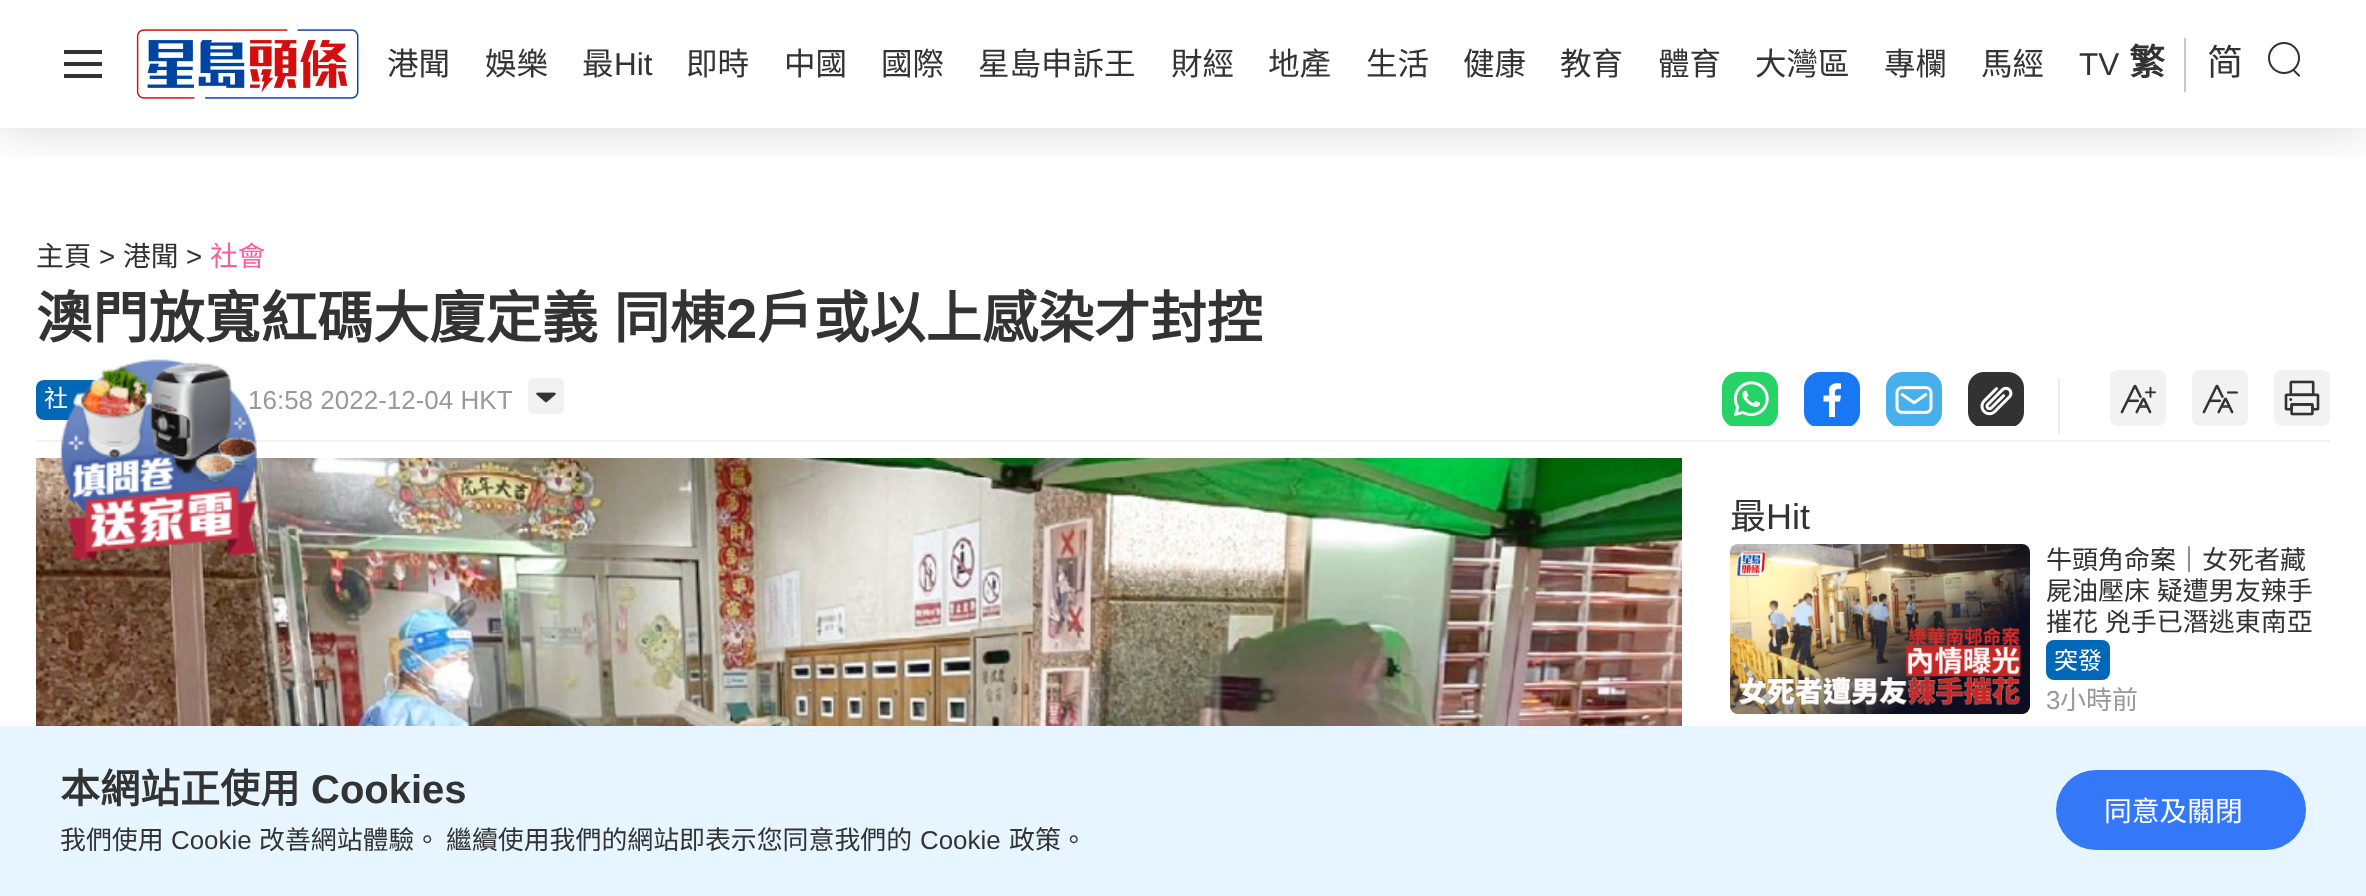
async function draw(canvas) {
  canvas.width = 2366
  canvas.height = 896
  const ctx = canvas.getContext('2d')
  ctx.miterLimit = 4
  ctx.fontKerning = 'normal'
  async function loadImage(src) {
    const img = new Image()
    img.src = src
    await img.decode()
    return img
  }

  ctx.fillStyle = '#fff'
  ctx.fillRect(0, 0, 2366, 896)
  ctx.save()
  ctx.beginPath()
  ctx.rect(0, 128, 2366, 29)
  ctx.clip()
  ctx.fillStyle = '#00000026'
  ctx.filter = 'blur(24px)'
  ctx.beginPath()
  ctx.rect(0, 2, 2366, 128)
  ctx.fill()
  ctx.filter = 'none'
  ctx.restore()
  ctx.fillStyle = '#333'
  ctx.fillRect(64, 50, 38, 4)
  ctx.fillRect(64, 62, 38, 4)
  ctx.fillRect(64, 74, 38, 4)
  ctx.drawImage(await loadImage('image0.png'), 136, 29, 223, 70)
  ctx.font = '31.5px Noto Sans CJK HK'
  ctx.fillText('港聞', 387, 75)
  ctx.fillText('娛樂', 485, 75)
  ctx.fillText('最', 582, 75)
  ctx.font = '31.5px Liberation Sans'
  ctx.fillText('Hit', 614, 75)
  ctx.font = '31.5px Noto Sans CJK HK'
  ctx.fillText('即時', 686, 75)
  ctx.fillText('中國', 784, 75)
  ctx.fillText('國際', 881, 75)
  ctx.fillText('星島申訴王', 978, 75)
  ctx.fillText('財經', 1171, 75)
  ctx.fillText('地產', 1268, 75)
  ctx.fillText('生活', 1366, 75)
  ctx.fillText('健康', 1463, 75)
  ctx.fillText('教育', 1560, 75)
  ctx.fillText('體育', 1658, 75)
  ctx.fillText('大灣區', 1755, 75)
  ctx.fillText('專欄', 1884, 75)
  ctx.fillText('馬經', 1981, 75)
  ctx.font = '31.5px Liberation Sans'
  ctx.fillText('TV', 2079, 75)
  ctx.fillStyle = '#c7c7c7'
  ctx.fillRect(2184, 38, 2, 54)
  ctx.font = 'bold 36px Noto Sans CJK HK'
  ctx.fillStyle = '#333'
  ctx.fillText('繁', 2129, 75)
  ctx.font = '36px Noto Sans CJK HK'
  ctx.fillText('简', 2207, 75)
  ctx.drawImage(await loadImage('image1.png'), 2268, 42, 33, 35)
  ctx.font = '27.75px Noto Sans CJK HK'
  ctx.fillText('主頁', 36, 266)
  ctx.font = '27.75px Liberation Sans'
  ctx.fillText('>', 99, 266)
  ctx.font = '27.75px Noto Sans CJK HK'
  ctx.fillText('港聞', 123, 266)
  ctx.font = '27.75px Liberation Sans'
  ctx.fillText('>', 186, 266)
  ctx.font = '27.75px Noto Sans CJK HK'
  ctx.fillStyle = '#ff5a99'
  ctx.fillText('社會', 210, 266)
  ctx.wordSpacing = '3px'
  ctx.font = 'bold 56.2px Noto Sans CJK HK'
  ctx.fillStyle = '#333'
  ctx.fillText('澳門放寬紅碼大廈定義 同棟', 36, 338)
  ctx.wordSpacing = '0px'
  ctx.font = 'bold 56.2px Liberation Sans'
  ctx.fillText('2', 726, 338)
  ctx.font = 'bold 56.2px Noto Sans CJK HK'
  ctx.fillText('戶或以上感染才封控', 757, 338)
  ctx.fillStyle = '#f2f2f2'
  ctx.fillRect(36, 440, 2294, 2)
  ctx.fillStyle = '#0168b7'
  ctx.beginPath()
  ctx.roundRect(36, 380, 64, 40, 8)
  ctx.fill()
  ctx.font = '24px Noto Sans CJK HK'
  ctx.fillStyle = '#fff'
  ctx.fillText('社', 44, 407)
  ctx.font = '26px Liberation Sans'
  ctx.fillStyle = '#999'
  ctx.fillText('16:58 2022-12-04 HKT', 248, 409)
  ctx.drawImage(await loadImage('image2.png'), 528, 378, 36, 36)
  ctx.drawImage(await loadImage('image3.png'), 1722, 372, 56, 54)
  ctx.save()
  ctx.beginPath()
  ctx.roundRect(1804, 370, 56, 56, 8)
  ctx.clip()
  ctx.fillStyle = '#1877f2'
  ctx.beginPath()
  ctx.roundRect(1804, 372, 56, 56, 16)
  ctx.fill()
  ctx.restore()
  ctx.fillStyle = '#fff'
  ctx.beginPath()
  ctx.moveTo(1838, 389)
  ctx.lineTo(1841, 389)
  ctx.lineTo(1841, 383.5)
  ctx.bezierCurveTo(1836, 383, 1830, 383, 1829, 389.5)
  ctx.lineTo(1829, 395.5)
  ctx.lineTo(1823.5, 395.5)
  ctx.lineTo(1823.5, 401.5)
  ctx.lineTo(1829, 401.5)
  ctx.lineTo(1829, 417)
  ctx.lineTo(1835, 417)
  ctx.lineTo(1835, 401.5)
  ctx.lineTo(1840, 401.5)
  ctx.lineTo(1841, 395.5)
  ctx.lineTo(1835, 395.5)
  ctx.bezierCurveTo(1835, 393, 1834, 389, 1838, 389)
  ctx.closePath()
  ctx.fill()
  ctx.drawImage(await loadImage('image4.png'), 1886, 372, 56, 54)
  ctx.drawImage(await loadImage('image5.png'), 1968, 372, 56, 54)
  ctx.fillStyle = '#ededed'
  ctx.fillRect(2058, 378, 2, 56)
  ctx.fillStyle = '#f2f2f2'
  ctx.beginPath()
  ctx.roundRect(2110, 370, 56, 56, 8)
  ctx.fill()
  ctx.drawImage(await loadImage('image6.png'), 2120, 384, 36, 30)
  ctx.beginPath()
  ctx.roundRect(2192, 370, 56, 56, 8)
  ctx.fill()
  ctx.drawImage(await loadImage('image7.png'), 2202, 384, 36, 30)
  ctx.beginPath()
  ctx.roundRect(2274, 370, 56, 56, 8)
  ctx.fill()
  ctx.drawImage(await loadImage('image8.png'), 2284, 380, 36, 36)
  ctx.drawImage(await loadImage('image9.png'), 36, 458, 1646, 268)
  ctx.font = '36px Noto Sans CJK HK'
  ctx.fillStyle = '#333'
  ctx.fillText('最', 1730, 529)
  ctx.font = '36px Liberation Sans'
  ctx.fillText('Hit', 1766, 529)
  ctx.drawImage(await loadImage('image10.png'), 1730, 544, 300, 170)
  ctx.font = '26px Noto Sans CJK HK'
  ctx.fillText('牛頭角命案｜女死者藏', 2046, 569)
  ctx.wordSpacing = '1px'
  ctx.fillText('屍油壓床 疑遭男友辣手', 2046, 600)
  ctx.fillText('摧花 兇手已潛逃東南亞', 2046, 631)
  ctx.fillStyle = '#0168b7'
  ctx.beginPath()
  ctx.roundRect(2046, 640, 64, 40, 8)
  ctx.fill()
  ctx.wordSpacing = '0px'
  ctx.font = '24px Noto Sans CJK HK'
  ctx.fillStyle = '#fff'
  ctx.fillText('突發', 2054, 669)
  ctx.font = '26px Liberation Sans'
  ctx.fillStyle = '#999'
  ctx.fillText('3', 2046, 709)
  ctx.font = '26px Noto Sans CJK HK'
  ctx.fillText('小時前', 2060, 709)
  ctx.drawImage(await loadImage('image11.png'), 60, 359, 197, 200)
  ctx.fillStyle = '#e6f5ff'
  ctx.fillRect(0, 726, 2366, 170)
  ctx.font = 'bold 40px Noto Sans CJK HK'
  ctx.fillStyle = '#333'
  ctx.fillText('本網站正使用', 60, 803)
  ctx.font = 'bold 40px Liberation Sans'
  ctx.fillText('Cookies', 311, 803)
  ctx.font = '25.9px Noto Sans CJK HK'
  ctx.fillText('我們使用', 60, 849)
  ctx.font = '25.9px Liberation Sans'
  ctx.fillText('Cookie', 171, 849)
  ctx.font = '25.9px Noto Sans CJK HK'
  ctx.fillText('改善網站體驗。 繼續使用我們的網站即表示您同意我們的', 259, 849)
  ctx.font = '25.9px Liberation Sans'
  ctx.fillText('Cookie', 920, 849)
  ctx.font = '25.9px Noto Sans CJK HK'
  ctx.fillText('政策。', 1009, 849)
  ctx.fillStyle = '#3478f7'
  ctx.beginPath()
  ctx.roundRect(2056, 770, 250, 80, 40)
  ctx.fill()
  ctx.font = '27.75px Noto Sans CJK HK'
  ctx.fillStyle = '#fff'
  ctx.fillText('同意及關閉', 2104, 821)
}

draw(document.querySelector('canvas'))
